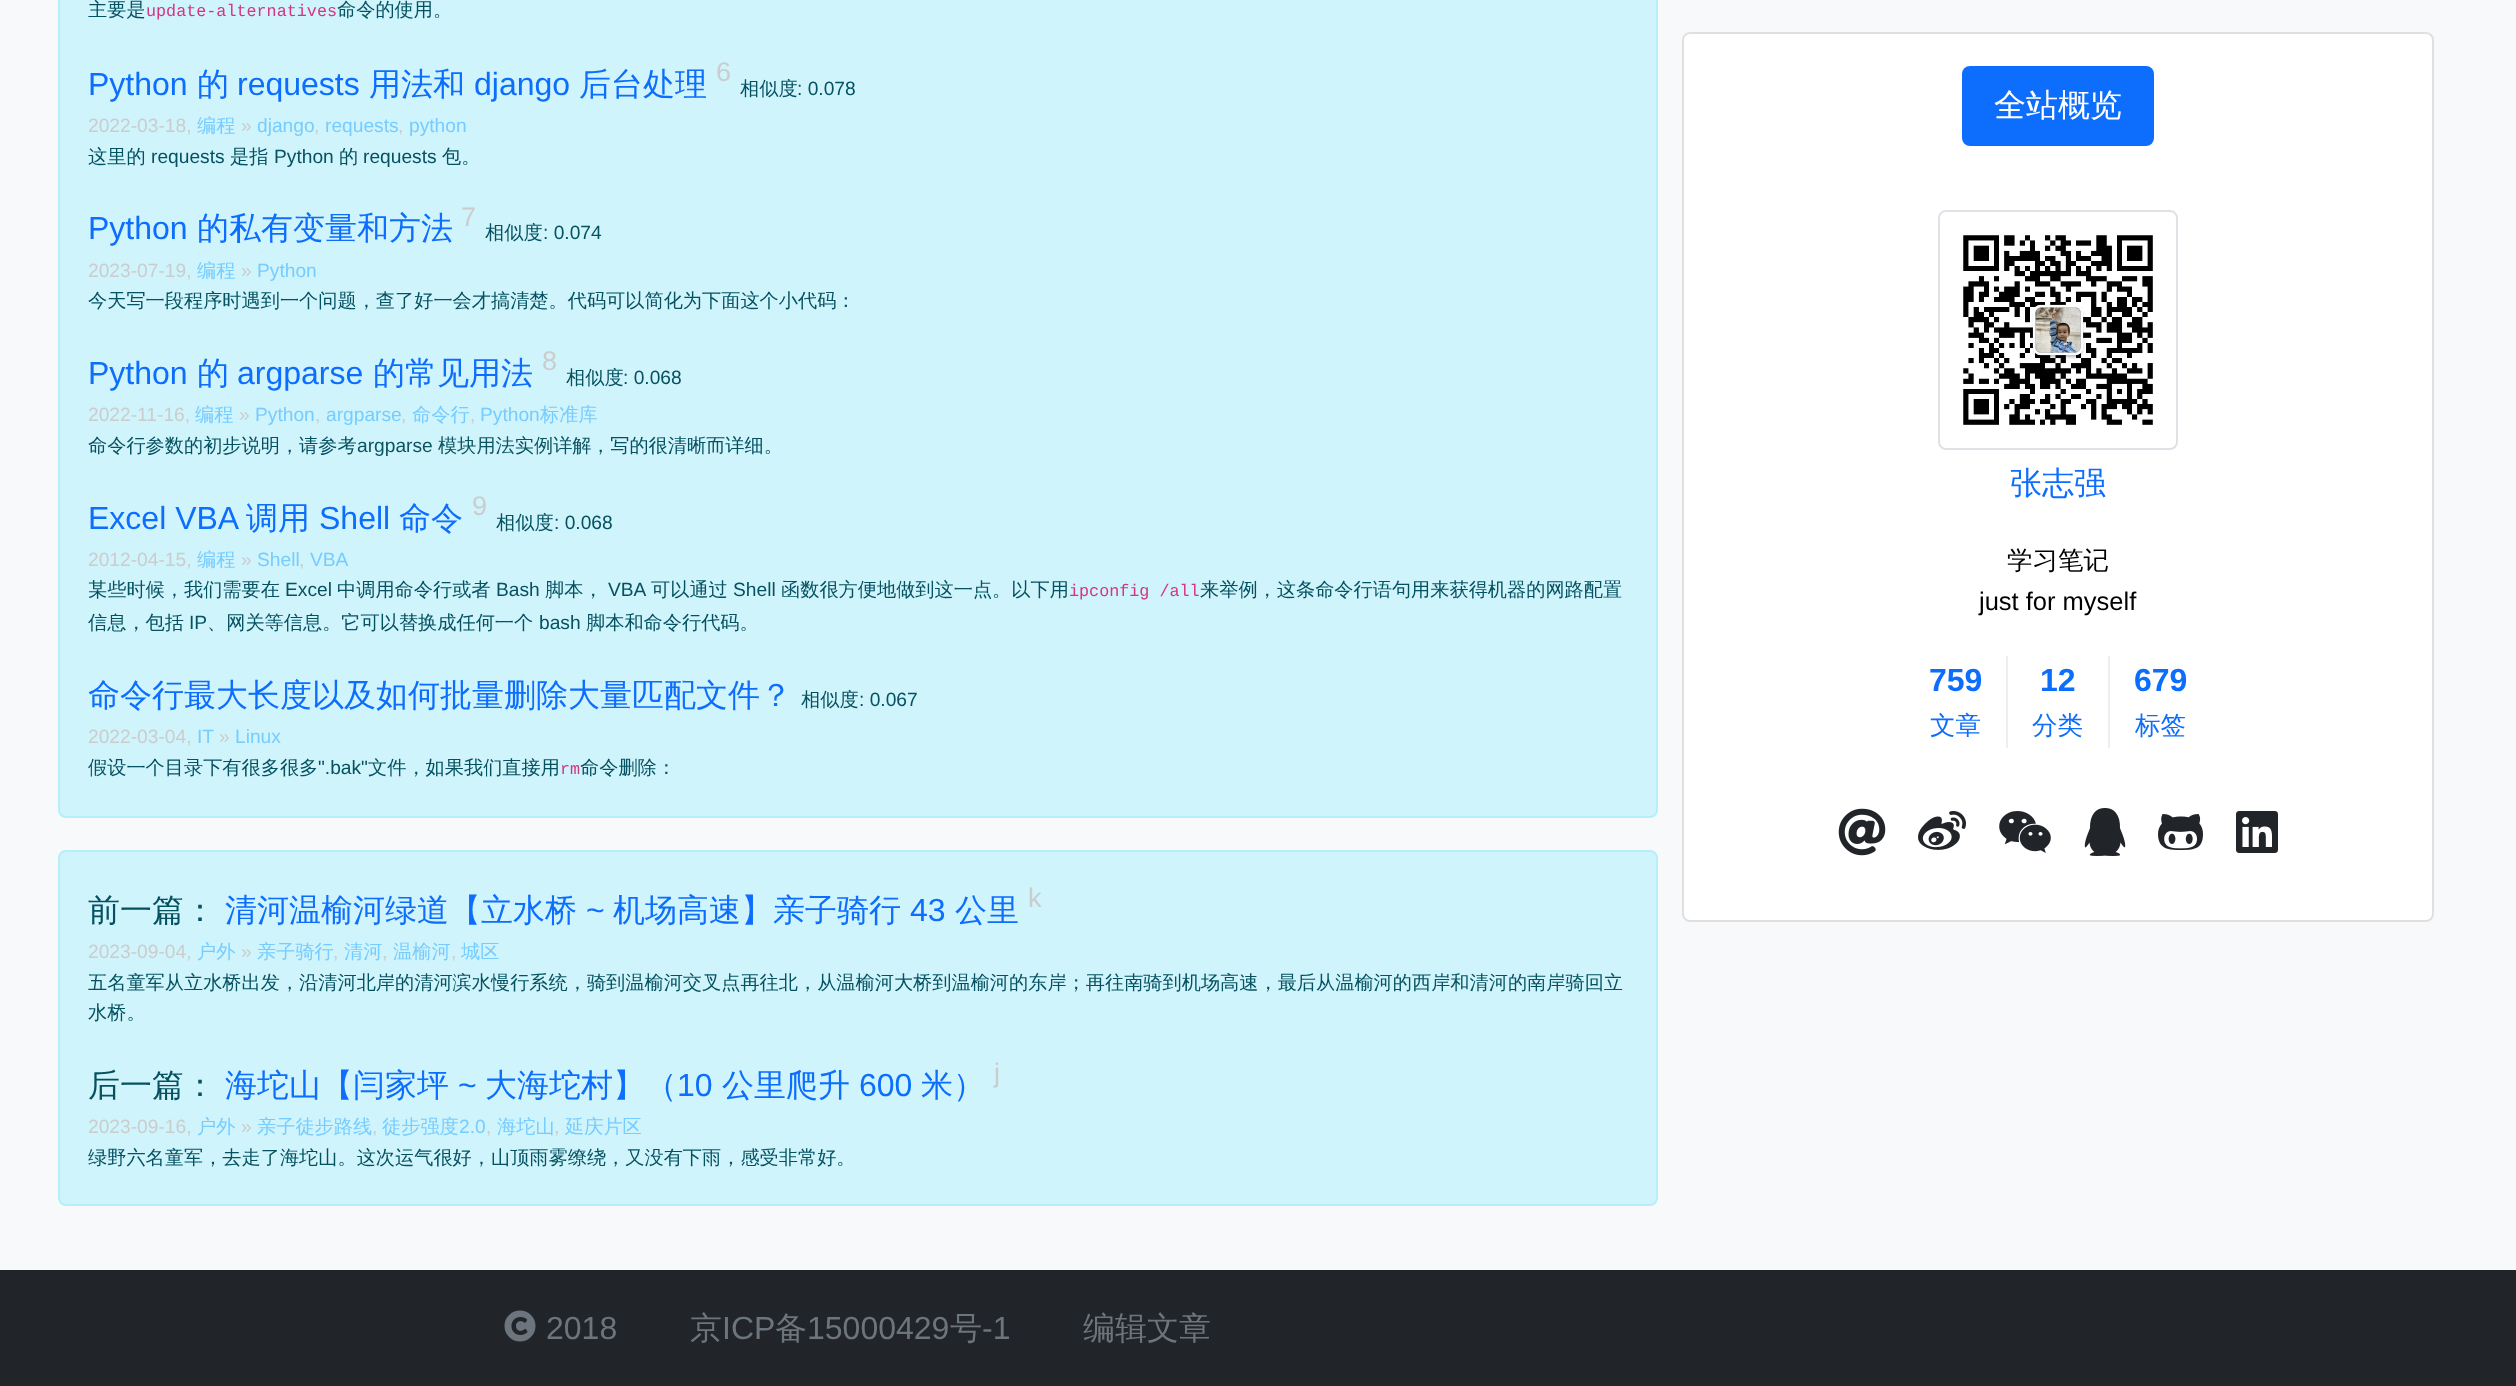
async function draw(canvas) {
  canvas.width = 2516
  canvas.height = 1386
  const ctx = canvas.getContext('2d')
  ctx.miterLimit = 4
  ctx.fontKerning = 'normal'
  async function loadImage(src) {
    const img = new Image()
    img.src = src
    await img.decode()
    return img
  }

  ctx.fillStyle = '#212529'
  ctx.fillRect(0, 0, 2516, 1386)
  ctx.fillStyle = '#f8f9fa'
  ctx.fillRect(0, 0, 2516, 1270)
  ctx.fillStyle = '#cff4fc'
  ctx.beginPath()
  ctx.roundRect(59, -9, 1598, 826, 7)
  ctx.fill()
  ctx.strokeStyle = '#b6effb'
  ctx.lineWidth = 2
  ctx.stroke()
  ctx.font = '500 19.2px WenQuanYi Zen Hei'
  ctx.fillStyle = '#055160'
  ctx.fillText('主要是', 88, 16)
  ctx.font = '16.75px Liberation Mono'
  ctx.fillStyle = '#d63384'
  ctx.fillText('update-alternatives', 146, 16)
  ctx.font = '500 19.2px WenQuanYi Zen Hei'
  ctx.fillStyle = '#055160'
  ctx.fillText('命令的使用。', 337, 16)
  ctx.font = '32px Liberation Sans'
  ctx.fillStyle = '#0d6efd'
  ctx.fillText('Python', 88, 95)
  ctx.font = '500 32px WenQuanYi Zen Hei'
  ctx.fillText('的', 197, 95)
  ctx.font = '32px Liberation Sans'
  ctx.fillText('requests', 237, 95)
  ctx.font = '500 32px WenQuanYi Zen Hei'
  ctx.fillText('用法和', 369, 95)
  ctx.font = '32px Liberation Sans'
  ctx.fillText('django', 474, 95)
  ctx.font = '500 32px WenQuanYi Zen Hei'
  ctx.fillText('后台处理', 579, 95)
  ctx.font = '27px Liberation Sans'
  ctx.fillStyle = '#ccc'
  ctx.fillText('6', 716, 81)
  ctx.font = '500 19.2px WenQuanYi Zen Hei'
  ctx.fillStyle = '#055160'
  ctx.fillText('相似度', 740, 95)
  ctx.font = '19.2px Liberation Sans'
  ctx.fillText(': 0.078', 797, 95)
  ctx.fillStyle = '#ccc'
  ctx.fillText('2022-03-18,', 88, 132)
  ctx.font = '500 19.2px WenQuanYi Zen Hei'
  ctx.fillStyle = '#7cf'
  ctx.fillText('编程', 197, 132)
  ctx.font = '19.2px Liberation Sans'
  ctx.fillStyle = '#ccc'
  ctx.fillText('»', 241, 132)
  ctx.fillStyle = '#7cf'
  ctx.fillText('django', 257, 132)
  ctx.fillText('requests', 325, 132)
  ctx.fillText('python', 409, 132)
  ctx.fillStyle = '#ccc'
  ctx.fillText(',', 314, 132)
  ctx.fillText(',', 398, 132)
  ctx.font = '500 19.2px WenQuanYi Zen Hei'
  ctx.fillStyle = '#055160'
  ctx.fillText('这里的', 88, 163)
  ctx.font = '19.2px Liberation Sans'
  ctx.fillText('requests', 151, 163)
  ctx.font = '500 19.2px WenQuanYi Zen Hei'
  ctx.fillText('是指', 230, 163)
  ctx.font = '19.2px Liberation Sans'
  ctx.fillText('Python', 274, 163)
  ctx.font = '500 19.2px WenQuanYi Zen Hei'
  ctx.fillText('的', 339, 163)
  ctx.font = '19.2px Liberation Sans'
  ctx.fillText('requests', 363, 163)
  ctx.font = '500 19.2px WenQuanYi Zen Hei'
  ctx.fillText('包。', 442, 163)
  ctx.font = '32px Liberation Sans'
  ctx.fillStyle = '#0d6efd'
  ctx.fillText('Python', 88, 239)
  ctx.font = '500 32px WenQuanYi Zen Hei'
  ctx.fillText('的私有变量和方法', 197, 239)
  ctx.font = '27px Liberation Sans'
  ctx.fillStyle = '#ccc'
  ctx.fillText('7', 461, 226)
  ctx.font = '500 19.2px WenQuanYi Zen Hei'
  ctx.fillStyle = '#055160'
  ctx.fillText('相似度', 485, 239)
  ctx.font = '19.2px Liberation Sans'
  ctx.fillText(': 0.074', 543, 239)
  ctx.fillStyle = '#ccc'
  ctx.fillText('2023-07-19,', 88, 277)
  ctx.font = '500 19.2px WenQuanYi Zen Hei'
  ctx.fillStyle = '#7cf'
  ctx.fillText('编程', 197, 277)
  ctx.font = '19.2px Liberation Sans'
  ctx.fillStyle = '#ccc'
  ctx.fillText('»', 241, 277)
  ctx.fillStyle = '#7cf'
  ctx.fillText('Python', 257, 277)
  ctx.font = '500 19.2px WenQuanYi Zen Hei'
  ctx.fillStyle = '#055160'
  ctx.fillText('今天写一段程序时遇到一个问题，查了好一会才搞清楚。代码可以简化为下面这个小代码：', 88, 307)
  ctx.font = '32px Liberation Sans'
  ctx.fillStyle = '#0d6efd'
  ctx.fillText('Python', 88, 384)
  ctx.font = '500 32px WenQuanYi Zen Hei'
  ctx.fillText('的', 197, 384)
  ctx.font = '32px Liberation Sans'
  ctx.fillText('argparse', 237, 384)
  ctx.font = '500 32px WenQuanYi Zen Hei'
  ctx.fillText('的常见用法', 373, 384)
  ctx.font = '27px Liberation Sans'
  ctx.fillStyle = '#ccc'
  ctx.fillText('8', 542, 370)
  ctx.font = '500 19.2px WenQuanYi Zen Hei'
  ctx.fillStyle = '#055160'
  ctx.fillText('相似度', 566, 384)
  ctx.font = '19.2px Liberation Sans'
  ctx.fillText(': 0.068', 623, 384)
  ctx.fillStyle = '#ccc'
  ctx.fillText('2022-11-16,', 88, 421)
  ctx.font = '500 19.2px WenQuanYi Zen Hei'
  ctx.fillStyle = '#7cf'
  ctx.fillText('编程', 195, 421)
  ctx.font = '19.2px Liberation Sans'
  ctx.fillStyle = '#ccc'
  ctx.fillText('»', 239, 421)
  ctx.fillStyle = '#7cf'
  ctx.fillText('Python', 255, 421)
  ctx.fillText('argparse', 326, 421)
  ctx.font = '500 19.2px WenQuanYi Zen Hei'
  ctx.fillText('命令行', 412, 421)
  ctx.font = '19.2px Liberation Sans'
  ctx.fillText('Python', 480, 421)
  ctx.font = '500 19.2px WenQuanYi Zen Hei'
  ctx.fillText('标准库', 540, 421)
  ctx.font = '19.2px Liberation Sans'
  ctx.fillStyle = '#ccc'
  ctx.fillText(',', 315, 421)
  ctx.fillText(',', 401, 421)
  ctx.fillText(',', 470, 421)
  ctx.font = '500 19.2px WenQuanYi Zen Hei'
  ctx.fillStyle = '#055160'
  ctx.fillText('命令行参数的初步说明，请参考', 88, 452)
  ctx.font = '19.2px Liberation Sans'
  ctx.fillStyle = '#0c5460'
  ctx.fillText('argparse', 357, 452)
  ctx.font = '500 19.2px WenQuanYi Zen Hei'
  ctx.fillText('模块用法实例详解', 438, 452)
  ctx.fillStyle = '#055160'
  ctx.fillText('，写的很清晰而详细。', 591, 452)
  ctx.font = '32px Liberation Sans'
  ctx.fillStyle = '#0d6efd'
  ctx.fillText('Excel VBA', 88, 529)
  ctx.font = '500 32px WenQuanYi Zen Hei'
  ctx.fillText('调用', 246, 529)
  ctx.font = '32px Liberation Sans'
  ctx.fillText('Shell', 319, 529)
  ctx.font = '500 32px WenQuanYi Zen Hei'
  ctx.fillText('命令', 399, 529)
  ctx.font = '27px Liberation Sans'
  ctx.fillStyle = '#ccc'
  ctx.fillText('9', 472, 515)
  ctx.font = '500 19.2px WenQuanYi Zen Hei'
  ctx.fillStyle = '#055160'
  ctx.fillText('相似度', 496, 529)
  ctx.font = '19.2px Liberation Sans'
  ctx.fillText(': 0.068', 554, 529)
  ctx.fillStyle = '#ccc'
  ctx.fillText('2012-04-15,', 88, 566)
  ctx.font = '500 19.2px WenQuanYi Zen Hei'
  ctx.fillStyle = '#7cf'
  ctx.fillText('编程', 197, 566)
  ctx.font = '19.2px Liberation Sans'
  ctx.fillStyle = '#ccc'
  ctx.fillText('»', 241, 566)
  ctx.fillStyle = '#7cf'
  ctx.fillText('Shell', 257, 566)
  ctx.fillText('VBA', 310, 566)
  ctx.fillStyle = '#ccc'
  ctx.fillText(',', 299, 566)
  ctx.font = '500 19.2px WenQuanYi Zen Hei'
  ctx.fillStyle = '#055160'
  ctx.fillText('某些时候，我们需要在', 88, 596)
  ctx.font = '19.2px Liberation Sans'
  ctx.fillText('Excel', 285, 596)
  ctx.font = '500 19.2px WenQuanYi Zen Hei'
  ctx.fillText('中调用命令行或者', 337, 596)
  ctx.font = '19.2px Liberation Sans'
  ctx.fillText('Bash', 496, 596)
  ctx.font = '500 19.2px WenQuanYi Zen Hei'
  ctx.fillText('脚本，', 545, 596)
  ctx.font = '19.2px Liberation Sans'
  ctx.fillText('VBA', 608, 596)
  ctx.font = '500 19.2px WenQuanYi Zen Hei'
  ctx.fillText('可以通过', 651, 596)
  ctx.font = '19.2px Liberation Sans'
  ctx.fillText('Shell', 733, 596)
  ctx.font = '500 19.2px WenQuanYi Zen Hei'
  ctx.fillText('函数很方便地做到这一点。以下用', 781, 596)
  ctx.font = '16.75px Liberation Mono'
  ctx.fillStyle = '#d63384'
  ctx.fillText('ipconfig /all', 1069, 596)
  ctx.font = '500 19.2px WenQuanYi Zen Hei'
  ctx.fillStyle = '#055160'
  ctx.fillText('来举例，这条命令行语句用来获得机器的网路配置', 1200, 596)
  ctx.fillText('信息，包括', 88, 629)
  ctx.font = '19.2px Liberation Sans'
  ctx.fillText('IP', 189, 629)
  ctx.font = '500 19.2px WenQuanYi Zen Hei'
  ctx.fillText('、网关等信息。它可以替换成任何一个', 207, 629)
  ctx.font = '19.2px Liberation Sans'
  ctx.fillText('bash', 539, 629)
  ctx.font = '500 19.2px WenQuanYi Zen Hei'
  ctx.fillText('脚本和命令行代码。', 586, 629)
  ctx.font = '500 32px WenQuanYi Zen Hei'
  ctx.fillStyle = '#0d6efd'
  ctx.fillText('命令行最大长度以及如何批量删除大量匹配文件？', 88, 706)
  ctx.font = '500 19.2px WenQuanYi Zen Hei'
  ctx.fillStyle = '#055160'
  ctx.fillText('相似度', 801, 706)
  ctx.font = '19.2px Liberation Sans'
  ctx.fillText(': 0.067', 859, 706)
  ctx.fillStyle = '#ccc'
  ctx.fillText('2022-03-04,', 88, 743)
  ctx.fillStyle = '#7cf'
  ctx.fillText('IT', 197, 743)
  ctx.fillStyle = '#ccc'
  ctx.fillText('»', 219, 743)
  ctx.fillStyle = '#7cf'
  ctx.fillText('Linux', 235, 743)
  ctx.font = '500 19.2px WenQuanYi Zen Hei'
  ctx.fillStyle = '#055160'
  ctx.fillText('假设一个目录下有很多很多', 88, 774)
  ctx.font = '19.2px Liberation Sans'
  ctx.fillText('".bak"', 318, 774)
  ctx.font = '500 19.2px WenQuanYi Zen Hei'
  ctx.fillText('文件，如果我们直接用', 368, 774)
  ctx.font = '16.75px Liberation Mono'
  ctx.fillStyle = '#d63384'
  ctx.fillText('rm', 560, 774)
  ctx.font = '500 19.2px WenQuanYi Zen Hei'
  ctx.fillStyle = '#055160'
  ctx.fillText('命令删除：', 580, 774)
  ctx.fillStyle = '#cff4fc'
  ctx.beginPath()
  ctx.roundRect(59, 851, 1598, 354, 7)
  ctx.fill()
  ctx.stroke()
  ctx.font = '500 32px WenQuanYi Zen Hei'
  ctx.fillStyle = '#055160'
  ctx.fillText('前一篇：', 88, 921)
  ctx.fillStyle = '#0d6efd'
  ctx.fillText('清河温榆河绿道【立水桥', 225, 921)
  ctx.font = '32px Liberation Sans'
  ctx.fillText('~', 586, 921)
  ctx.font = '500 32px WenQuanYi Zen Hei'
  ctx.fillText('机场高速】亲子骑行', 613, 921)
  ctx.font = '32px Liberation Sans'
  ctx.fillText('43', 910, 921)
  ctx.font = '500 32px WenQuanYi Zen Hei'
  ctx.fillText('公里', 955, 921)
  ctx.font = '27px Liberation Sans'
  ctx.fillStyle = '#ccc'
  ctx.fillText('k', 1028, 907)
  ctx.font = '19.2px Liberation Sans'
  ctx.fillText('2023-09-04,', 88, 958)
  ctx.font = '500 19.2px WenQuanYi Zen Hei'
  ctx.fillStyle = '#7cf'
  ctx.fillText('户外', 197, 958)
  ctx.font = '19.2px Liberation Sans'
  ctx.fillStyle = '#ccc'
  ctx.fillText('»', 241, 958)
  ctx.font = '500 19.2px WenQuanYi Zen Hei'
  ctx.fillStyle = '#7cf'
  ctx.fillText('亲子骑行', 257, 958)
  ctx.fillText('清河', 344, 958)
  ctx.fillText('温榆河', 393, 958)
  ctx.fillText('城区', 461, 958)
  ctx.font = '19.2px Liberation Sans'
  ctx.fillStyle = '#ccc'
  ctx.fillText(',', 333, 958)
  ctx.fillText(',', 382, 958)
  ctx.fillText(',', 451, 958)
  ctx.font = '500 19.2px WenQuanYi Zen Hei'
  ctx.fillStyle = '#055160'
  ctx.fillText('五名童军从立水桥出发，沿清河北岸的清河滨水慢行系统，骑到温榆河交叉点再往北，从温榆河大桥到温榆河的东岸；再往南骑到机场高速，最后从温榆河的西岸和清河的南岸骑回立', 88, 989)
  ctx.fillText('水桥。', 88, 1019)
  ctx.font = '500 32px WenQuanYi Zen Hei'
  ctx.fillText('后一篇：', 88, 1096)
  ctx.fillStyle = '#0d6efd'
  ctx.fillText('海坨山【闫家坪', 225, 1096)
  ctx.font = '32px Liberation Sans'
  ctx.fillText('~', 458, 1096)
  ctx.font = '500 32px WenQuanYi Zen Hei'
  ctx.fillText('大海坨村】（', 485, 1096)
  ctx.font = '32px Liberation Sans'
  ctx.fillText('10', 677, 1096)
  ctx.font = '500 32px WenQuanYi Zen Hei'
  ctx.fillText('公里爬升', 722, 1096)
  ctx.font = '32px Liberation Sans'
  ctx.fillText('600', 859, 1096)
  ctx.font = '500 32px WenQuanYi Zen Hei'
  ctx.fillText('米）', 921, 1096)
  ctx.font = '27px Liberation Sans'
  ctx.fillStyle = '#ccc'
  ctx.fillText('j', 994, 1082)
  ctx.font = '19.2px Liberation Sans'
  ctx.fillText('2023-09-16,', 88, 1133)
  ctx.font = '500 19.2px WenQuanYi Zen Hei'
  ctx.fillStyle = '#7cf'
  ctx.fillText('户外', 197, 1133)
  ctx.font = '19.2px Liberation Sans'
  ctx.fillStyle = '#ccc'
  ctx.fillText('»', 241, 1133)
  ctx.font = '500 19.2px WenQuanYi Zen Hei'
  ctx.fillStyle = '#7cf'
  ctx.fillText('亲子徒步路线', 257, 1133)
  ctx.fillText('徒步强度', 382, 1133)
  ctx.font = '19.2px Liberation Sans'
  ctx.fillText('2.0', 459, 1133)
  ctx.font = '500 19.2px WenQuanYi Zen Hei'
  ctx.fillText('海坨山', 497, 1133)
  ctx.fillText('延庆片区', 565, 1133)
  ctx.font = '19.2px Liberation Sans'
  ctx.fillStyle = '#ccc'
  ctx.fillText(',', 372, 1133)
  ctx.fillText(',', 486, 1133)
  ctx.fillText(',', 554, 1133)
  ctx.font = '500 19.2px WenQuanYi Zen Hei'
  ctx.fillStyle = '#055160'
  ctx.fillText('绿野六名童军，去走了海坨山。这次运气很好，山顶雨雾缭绕，又没有下雨，感受非常好。', 88, 1164)
  ctx.fillStyle = '#fff'
  ctx.beginPath()
  ctx.roundRect(1682, 32, 752, 890, 8)
  ctx.fill()
  ctx.beginPath()
  ctx.roundRect(1683, 33, 750, 888, 7)
  ctx.strokeStyle = '#0000001f'
  ctx.stroke()
  ctx.fillStyle = '#0d6efd'
  ctx.beginPath()
  ctx.roundRect(1962, 66, 192, 80, 8)
  ctx.fill()
  ctx.font = '500 32px WenQuanYi Zen Hei'
  ctx.fillStyle = '#fff'
  ctx.fillText('全站概览', 1994, 116)
  ctx.beginPath()
  ctx.roundRect(1939, 211, 238, 238, 7)
  ctx.strokeStyle = '#dee2e6'
  ctx.stroke()
  ctx.drawImage(await loadImage('image0.png'), 1961, 233, 192, 192)
  ctx.fillStyle = '#0d6efd'
  ctx.fillText('张志强', 2010, 494)
  ctx.font = '500 25.5px WenQuanYi Zen Hei'
  ctx.fillStyle = '#000'
  ctx.fillText('学习笔记', 2007, 569)
  ctx.font = '25.5px Liberation Sans'
  ctx.fillText('just for myself', 1979, 610)
  ctx.fillStyle = '#eee'
  ctx.fillRect(2006, 656, 2, 92)
  ctx.font = 'bold 32px Liberation Sans'
  ctx.fillStyle = '#0d6efd'
  ctx.fillText('759', 1929, 691)
  ctx.font = '500 25.5px WenQuanYi Zen Hei'
  ctx.fillText('文章', 1930, 734)
  ctx.fillStyle = '#eee'
  ctx.fillRect(2108, 656, 2, 92)
  ctx.font = 'bold 32px Liberation Sans'
  ctx.fillStyle = '#0d6efd'
  ctx.fillText('12', 2040, 691)
  ctx.font = '500 25.5px WenQuanYi Zen Hei'
  ctx.fillText('分类', 2032, 734)
  ctx.font = 'bold 32px Liberation Sans'
  ctx.fillText('679', 2134, 691)
  ctx.font = '500 25.5px WenQuanYi Zen Hei'
  ctx.fillText('标签', 2135, 734)
  ctx.drawImage(await loadImage('image1.png'), 1838, 808, 48, 48)
  ctx.drawImage(await loadImage('image2.png'), 1918, 811, 48, 39)
  ctx.drawImage(await loadImage('image3.png'), 1999, 811, 52, 42)
  ctx.drawImage(await loadImage('image4.png'), 2084, 808, 42, 48)
  ctx.drawImage(await loadImage('image5.png'), 2158, 814, 45, 36)
  ctx.drawImage(await loadImage('image6.png'), 2236, 811, 42, 42)
  ctx.drawImage(await loadImage('image7.png'), 504, 1310, 32, 32)
  ctx.font = '32px Liberation Sans'
  ctx.fillStyle = '#6c757d'
  ctx.fillText('2018', 546, 1339)
  ctx.font = '500 32px WenQuanYi Zen Hei'
  ctx.fillText('京', 690, 1339)
  ctx.font = '32px Liberation Sans'
  ctx.fillText('ICP', 722, 1339)
  ctx.font = '500 32px WenQuanYi Zen Hei'
  ctx.fillText('备', 775, 1339)
  ctx.font = '32px Liberation Sans'
  ctx.fillText('15000429', 807, 1339)
  ctx.font = '500 32px WenQuanYi Zen Hei'
  ctx.fillText('号', 950, 1339)
  ctx.font = '32px Liberation Sans'
  ctx.fillText('-1', 982, 1339)
  ctx.font = '500 32px WenQuanYi Zen Hei'
  ctx.fillText('编辑文章', 1083, 1339)
}

draw(document.querySelector('canvas'))
